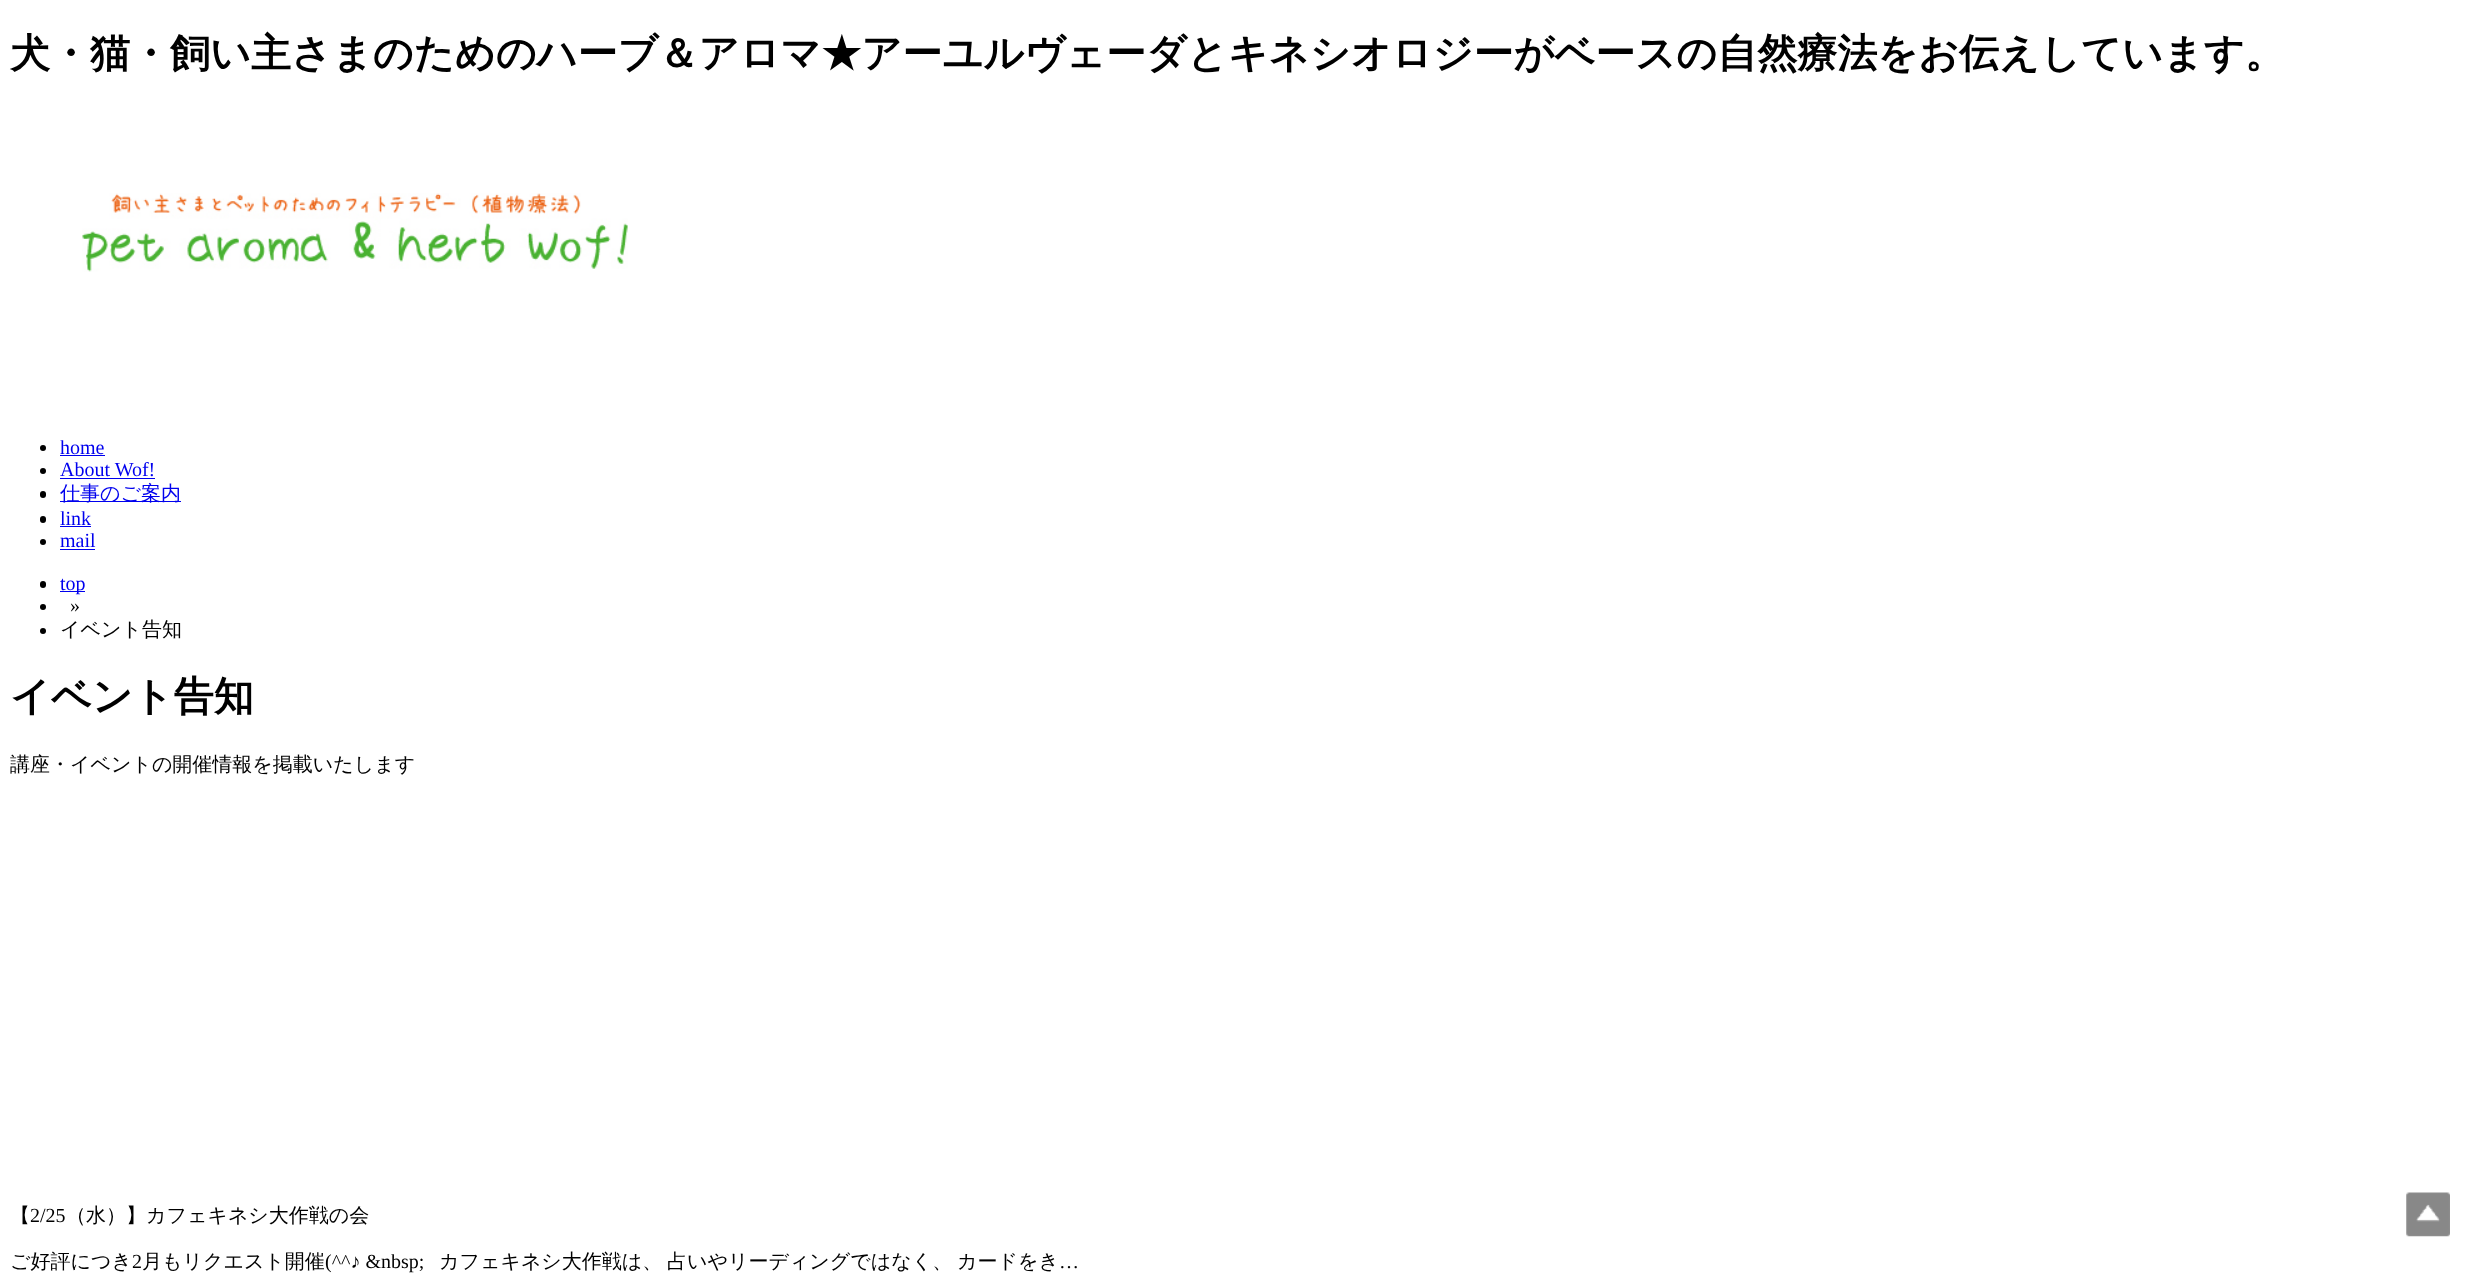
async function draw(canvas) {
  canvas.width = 2487
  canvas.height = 1273
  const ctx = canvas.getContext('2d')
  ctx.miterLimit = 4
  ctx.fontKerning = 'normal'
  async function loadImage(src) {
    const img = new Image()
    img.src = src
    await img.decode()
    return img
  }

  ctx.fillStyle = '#fff'
  ctx.fillRect(0, 0, 2487, 1273)
  ctx.font = 'bold 40px WenQuanYi Zen Hei'
  ctx.fillStyle = '#000'
  ctx.fillText('犬・猫・飼い主さまのためのハーブ＆アロマ★アーユルヴェーダとキネシオロジーがベースの自然療法をお伝えしています。', 10, 67)
  ctx.drawImage(await loadImage('image0.png'), 82, 193, 546, 79)
  ctx.beginPath()
  ctx.arc(43, 448, 3, 0, 2 * Math.PI)
  ctx.fill()
  ctx.font = '20px Liberation Serif'
  ctx.fillStyle = '#00e'
  ctx.fillText('home', 60, 454)
  ctx.fillRect(60, 455, 45, 1)
  ctx.fillStyle = '#000'
  ctx.beginPath()
  ctx.arc(43, 471, 3, 0, 2 * Math.PI)
  ctx.fill()
  ctx.fillStyle = '#00e'
  ctx.fillText('About Wof!', 60, 476)
  ctx.fillRect(60, 478, 95, 1)
  ctx.fillStyle = '#000'
  ctx.beginPath()
  ctx.roundRect(40, 491, 6, 7, 3)
  ctx.fill()
  ctx.fillStyle = '#00e'
  ctx.fillRect(60, 501, 121, 1)
  ctx.font = '500 20px WenQuanYi Zen Hei'
  ctx.fillText('仕事のご案内', 60, 500)
  ctx.fillStyle = '#000'
  ctx.beginPath()
  ctx.roundRect(40, 516, 6, 7, 3)
  ctx.fill()
  ctx.font = '20px Liberation Serif'
  ctx.fillStyle = '#00e'
  ctx.fillText('link', 60, 525)
  ctx.fillRect(60, 526, 31, 1)
  ctx.fillStyle = '#000'
  ctx.beginPath()
  ctx.arc(43, 542, 3, 0, 2 * Math.PI)
  ctx.fill()
  ctx.fillStyle = '#00e'
  ctx.fillText('mail', 60, 547)
  ctx.fillRect(60, 549, 35, 1)
  ctx.fillStyle = '#000'
  ctx.beginPath()
  ctx.roundRect(40, 581, 6, 7, 3)
  ctx.fill()
  ctx.fillStyle = '#00e'
  ctx.fillRect(60, 591, 25, 1)
  ctx.fillText('top', 60, 590)
  ctx.fillStyle = '#000'
  ctx.beginPath()
  ctx.arc(43, 607, 3, 0, 2 * Math.PI)
  ctx.fill()
  ctx.fillText('»', 70, 612)
  ctx.beginPath()
  ctx.arc(43, 631, 3, 0, 2 * Math.PI)
  ctx.fill()
  ctx.font = '500 20px WenQuanYi Zen Hei'
  ctx.fillText('イベント告知', 60, 636)
  ctx.font = 'bold 40px WenQuanYi Zen Hei'
  ctx.fillText('イベント告知', 10, 710)
  ctx.font = '500 20px WenQuanYi Zen Hei'
  ctx.fillText('講座・イベントの開催情報を掲載いたします', 10, 771)
  ctx.fillText('【', 10, 1222)
  ctx.font = '20px Liberation Serif'
  ctx.fillText('2/25', 30, 1222)
  ctx.font = '500 20px WenQuanYi Zen Hei'
  ctx.fillText('（水）】カフェキネシ大作戦の会', 66, 1222)
  ctx.fillText('ご好評につき', 10, 1268)
  ctx.font = '20px Liberation Serif'
  ctx.fillText('2', 132, 1268)
  ctx.font = '500 20px WenQuanYi Zen Hei'
  ctx.fillText('月もリクエスト開催', 142, 1268)
  ctx.font = '20px Liberation Serif'
  ctx.fillText('(^^♪ &nbsp;', 325, 1268)
  ctx.font = '500 20px WenQuanYi Zen Hei'
  ctx.fillText('カフェキネシ大作戦は、', 439, 1268)
  ctx.fillText('占いやリーディングではなく、', 667, 1268)
  ctx.fillText('カードをき', 957, 1268)
  ctx.font = '20px Liberation Serif'
  ctx.fillText('…', 1059, 1268)
  ctx.drawImage(await loadImage('image1.png'), 2406, 1192, 44, 45)
}

draw(document.querySelector('canvas'))
